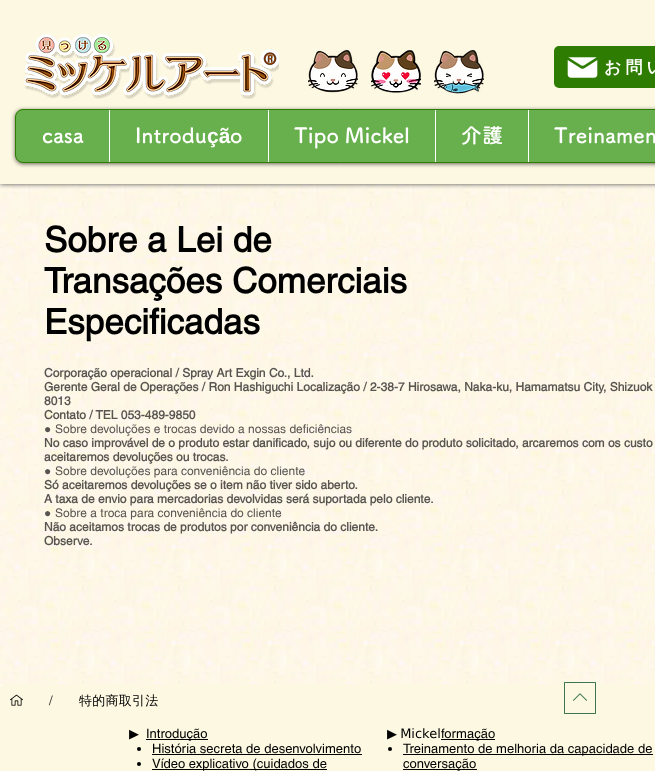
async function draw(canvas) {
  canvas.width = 655
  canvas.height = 771
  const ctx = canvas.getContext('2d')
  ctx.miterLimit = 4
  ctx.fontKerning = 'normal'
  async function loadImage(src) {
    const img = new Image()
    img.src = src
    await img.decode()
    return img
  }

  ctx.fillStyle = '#fff'
  ctx.fillRect(0, 0, 655, 771)
  ctx.drawImage(await loadImage('image7.png'), 0, 184, 655, 500)
  ctx.fillStyle = '#000000b3'
  ctx.filter = 'blur(2.5px)'
  ctx.beginPath()
  ctx.rect(0, 0, 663, 184)
  ctx.fill()
  ctx.filter = 'none'
  ctx.fillStyle = '#fcf8e1'
  ctx.fillRect(0, 0, 655, 184)
  ctx.drawImage(await loadImage('image0.png'), 25, 33, 254, 66)
  ctx.drawImage(await loadImage('image1.png'), 308, 49, 50, 44)
  ctx.drawImage(await loadImage('image2.png'), 371, 50, 50, 43)
  ctx.drawImage(await loadImage('image3.png'), 434, 49, 50, 45)
  ctx.fillStyle = '#2e7c01'
  ctx.beginPath()
  ctx.roundRect(554, 46, 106, 42, 5)
  ctx.fill()
  ctx.drawImage(await loadImage('image4.png'), 567, 57, 31, 21)
  ctx.letterSpacing = '4px'
  ctx.font = 'bold 17px WenQuanYi Zen Hei'
  ctx.fillStyle = '#fff'
  ctx.fillText('お問い', 604, 73)
  ctx.fillStyle = '#00000099'
  ctx.filter = 'blur(2px)'
  ctx.beginPath()
  ctx.roundRect(15, 110, 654, 54, 8)
  ctx.fill()
  ctx.filter = 'none'
  ctx.fillStyle = '#68b04d'
  ctx.beginPath()
  ctx.roundRect(15.5, 109.5, 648, 53, 7.5)
  ctx.fill()
  ctx.strokeStyle = '#2e7c01'
  ctx.stroke()
  ctx.letterSpacing = '0px'
  ctx.font = 'bold 21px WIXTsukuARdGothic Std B'
  ctx.fillStyle = '#fff'
  ctx.fillText('casa', 42, 143)
  ctx.fillRect(109, 110, 1, 52)
  ctx.fillText('Introdu', 135, 143)
  ctx.font = 'bold 21px Liberation Sans'
  ctx.fillText('çã', 207, 143)
  ctx.font = 'bold 21px WIXTsukuARdGothic Std B'
  ctx.fillText('o', 230, 143)
  ctx.fillRect(268, 110, 1, 52)
  ctx.fillText('Tipo Mickel', 294, 143)
  ctx.fillRect(435, 110, 1, 52)
  ctx.fillText('介護', 461, 143)
  ctx.fillRect(528, 110, 1, 52)
  ctx.fillText('Treinamen', 554, 143)
  ctx.font = 'bold 35px helvetica'
  ctx.fillStyle = '#000'
  ctx.fillText('Sobre a Lei de', 44, 252)
  ctx.fillText('Transações Comerciais', 44, 293)
  ctx.fillText('Especificadas', 44, 334)
  ctx.font = 'bold 12px helvetica'
  ctx.fillStyle = '#585551'
  ctx.fillText('Corporação operacional / Spray Art Exgin Co., Ltd.', 44, 377)
  ctx.fillText('Gerente Geral de Operações / Ron Hashiguchi Localização / 2-38-7 Hirosawa, Naka-ku, Hamamatsu City, Shizuok', 44, 391)
  ctx.fillText('8013', 44, 405)
  ctx.fillText('Contato / TEL 053-489-9850', 44, 419)
  ctx.font = '12px Liberation Sans'
  ctx.fillText('●', 44, 433)
  ctx.font = '12px helvetica'
  ctx.fillText('Sobre devoluções e trocas devido a nossas deficiências', 55, 433)
  ctx.font = 'bold 12px helvetica'
  ctx.fillText('No caso improvável de o produto estar danificado, sujo ou diferente do produto solicitado, arcaremos com os custo', 44, 447)
  ctx.fillText('aceitaremos devoluções ou trocas.', 44, 461)
  ctx.font = '12px Liberation Sans'
  ctx.fillText('●', 44, 475)
  ctx.font = '12px helvetica'
  ctx.fillText('Sobre devoluções para conveniência do cliente', 55, 475)
  ctx.font = 'bold 12px helvetica'
  ctx.fillText('Só aceitaremos devoluções se o item não tiver sido aberto.', 44, 489)
  ctx.fillText('A taxa de envio para mercadorias devolvidas será suportada pelo cliente.', 44, 503)
  ctx.font = '12px Liberation Sans'
  ctx.fillText('●', 44, 517)
  ctx.font = '12px helvetica'
  ctx.fillText('Sobre a troca para conveniência do cliente', 55, 517)
  ctx.font = 'bold 12px helvetica'
  ctx.fillText('Não aceitamos trocas de produtos por conveniência do cliente.', 44, 531)
  ctx.fillText('Observe.', 44, 545)
  ctx.fillStyle = '#fffdf2'
  ctx.fillRect(0, 684, 5, 5)
  ctx.fillStyle = '#fcf8e1'
  ctx.beginPath()
  ctx.roundRect(0, 684, 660, 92, 5)
  ctx.fill()
  ctx.drawImage(await loadImage('image5.png'), 564, 682, 32, 32)
  ctx.drawImage(await loadImage('image6.png'), 10, 694, 13, 12)
  ctx.font = '13px helvetica'
  ctx.fillStyle = '#323232'
  ctx.fillText('/', 49, 705)
  ctx.letterSpacing = '0.25px'
  ctx.font = '500 13px WenQuanYi Zen Hei'
  ctx.fillStyle = '#000'
  ctx.fillText('特的商取引法', 79, 705)
  ctx.letterSpacing = '0px'
  ctx.wordSpacing = '-1px'
  ctx.font = '13px DejaVu Sans'
  ctx.fillText('▶ ︎', 129, 738)
  ctx.fillRect(146, 739, 62, 1)
  ctx.wordSpacing = '0px'
  ctx.font = '13px helvetica'
  ctx.fillText('Introdução', 146, 738)
  ctx.beginPath()
  ctx.arc(139, 749, 2, 0, 2 * Math.PI)
  ctx.fill()
  ctx.fillText('História secreta de desenvolvimento', 152, 753)
  ctx.fillRect(152, 754, 210, 1)
  ctx.beginPath()
  ctx.arc(139, 764, 2, 0, 2 * Math.PI)
  ctx.fill()
  ctx.fillRect(152, 769, 175, 1)
  ctx.fillText('Vídeo explicativo (cuidados de', 152, 768)
  ctx.wordSpacing = '-1px'
  ctx.font = '13px DejaVu Sans'
  ctx.fillText('▶ ︎Mickel', 387, 738)
  ctx.fillRect(441, 739, 54, 1)
  ctx.wordSpacing = '0px'
  ctx.font = '13px helvetica'
  ctx.fillText('formação', 441, 738)
  ctx.beginPath()
  ctx.arc(390, 749, 2, 0, 2 * Math.PI)
  ctx.fill()
  ctx.fillRect(403, 754, 250, 1)
  ctx.fillText('Treinamento de melhoria da capacidade de', 403, 753)
  ctx.fillRect(403, 769, 74, 1)
  ctx.fillText('conversação', 403, 768)
}

draw(document.querySelector('canvas'))
